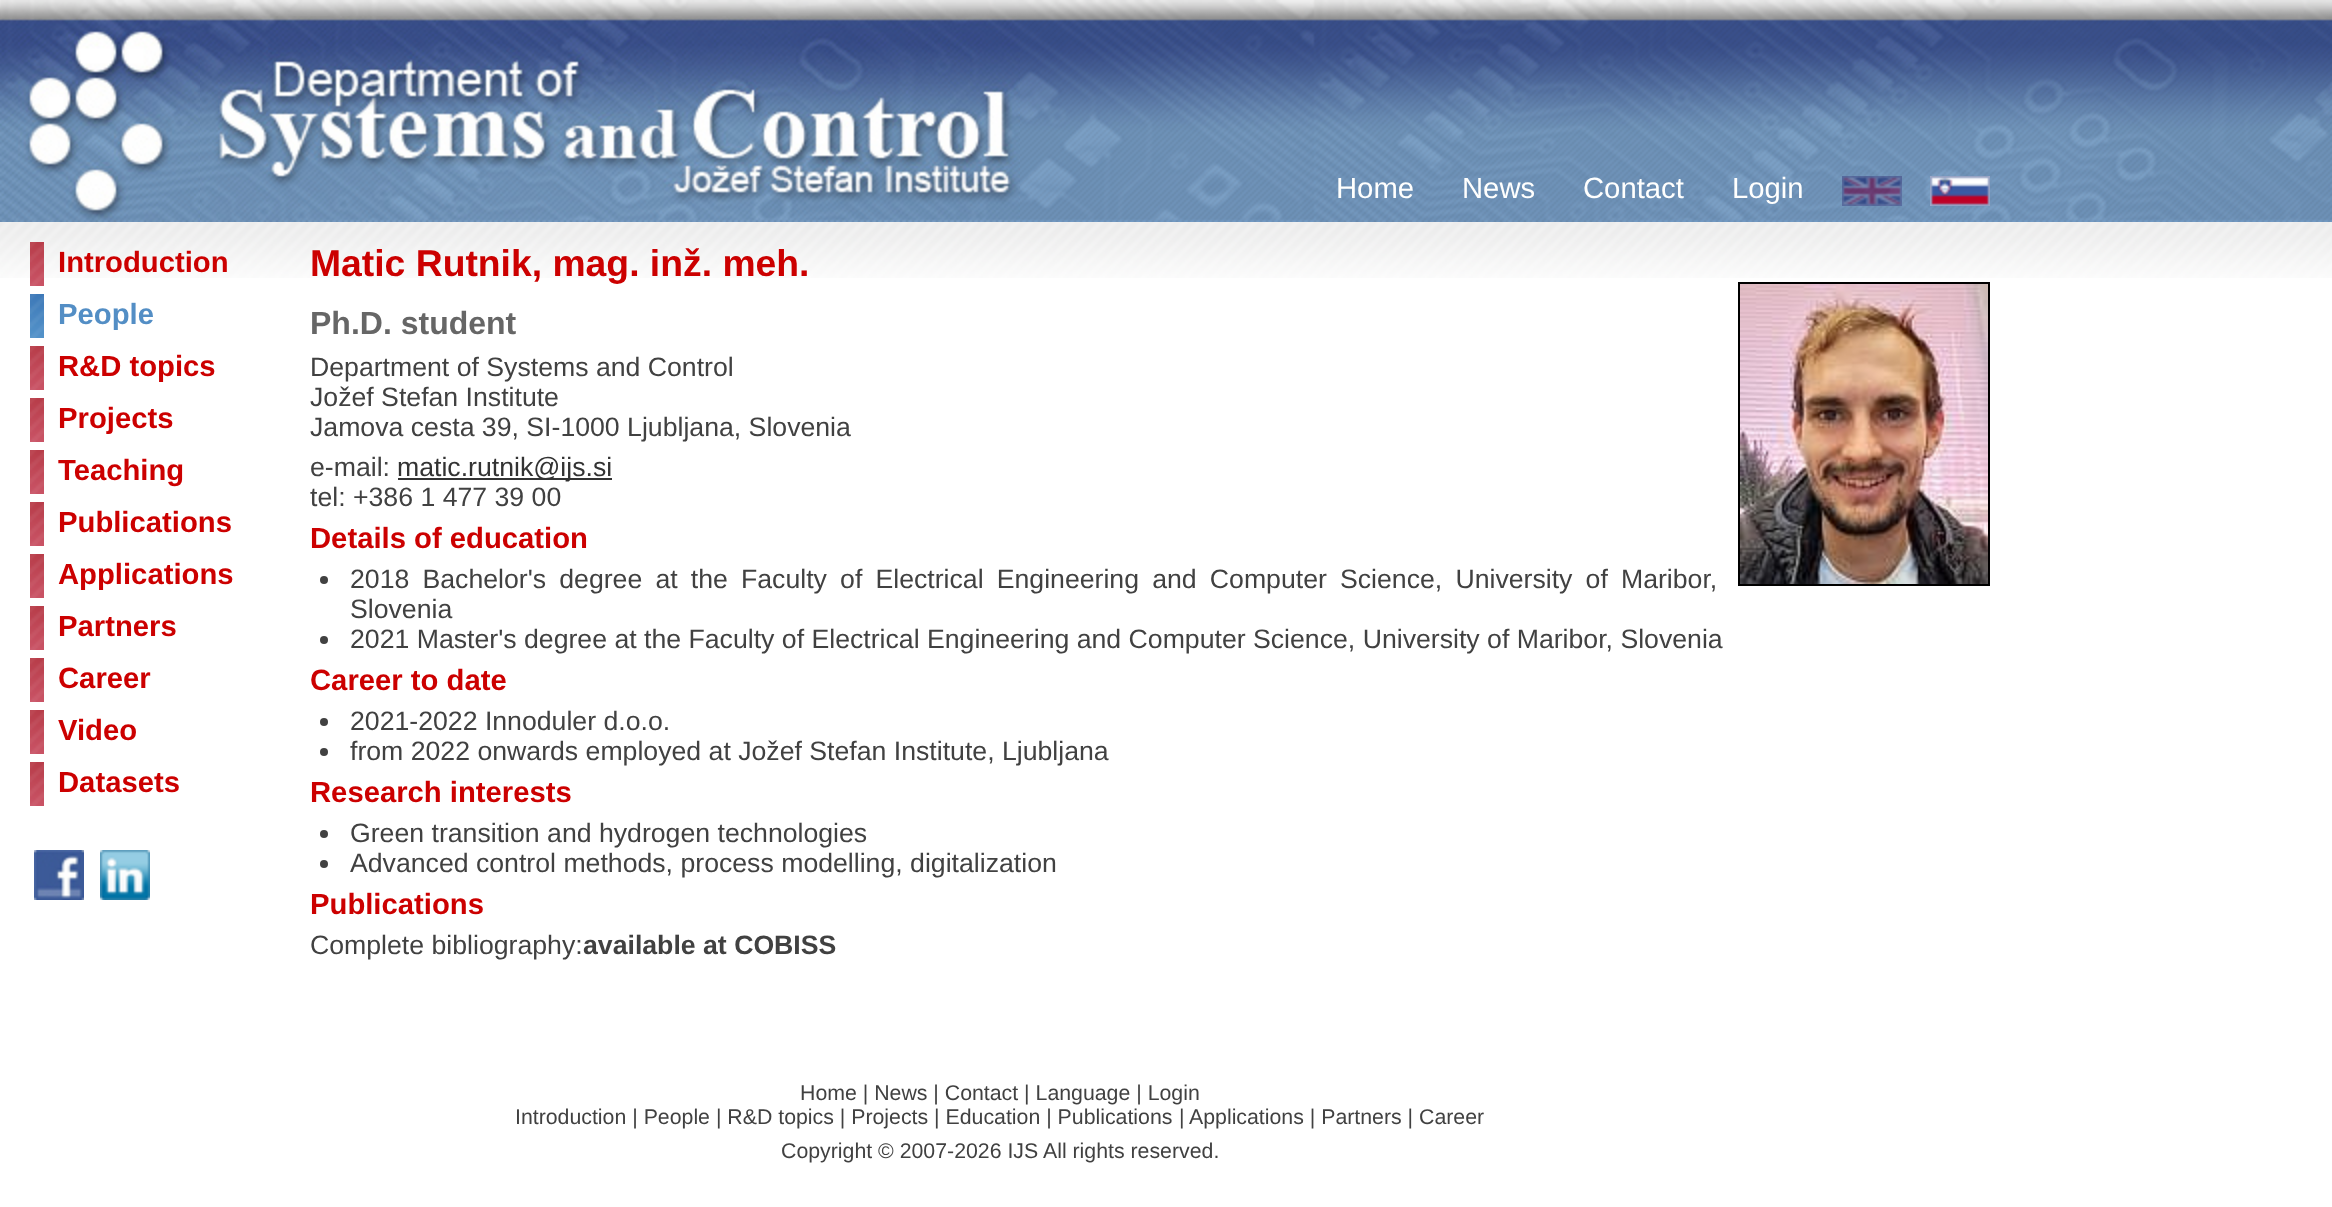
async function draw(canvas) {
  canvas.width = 2332
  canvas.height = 1207
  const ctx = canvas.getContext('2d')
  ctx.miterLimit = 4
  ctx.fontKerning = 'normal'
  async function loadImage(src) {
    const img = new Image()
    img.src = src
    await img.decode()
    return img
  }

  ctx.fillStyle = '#fff'
  ctx.fillRect(0, 0, 2332, 1207)
  ctx.drawImage(await loadImage('image0.png'), 0, 222, 2332, 56)
  ctx.drawImage(await loadImage('image1.png'), 0, 0, 2332, 222)
  ctx.drawImage(await loadImage('image2.png'), 0, 18, 200, 204)
  ctx.drawImage(await loadImage('image3.png'), 200, 16, 820, 206)
  ctx.font = '29.25px Liberation Sans'
  ctx.fillStyle = '#fffffe'
  ctx.fillText('Home', 1336, 198)
  ctx.fillText('News', 1462, 198)
  ctx.fillText('Contact', 1583, 198)
  ctx.fillText('Login', 1732, 198)
  ctx.drawImage(await loadImage('image4.png'), 1842, 176, 60, 30)
  ctx.drawImage(await loadImage('image5.png'), 1930, 176, 60, 30)
  ctx.drawImage(await loadImage('image6.png'), 30, 242, 14, 44)
  ctx.font = 'bold 29.25px Liberation Sans'
  ctx.fillStyle = '#c00'
  ctx.fillText('Introduction', 58, 272)
  ctx.drawImage(await loadImage('image7.png'), 30, 294, 14, 44)
  ctx.fillStyle = '#538ec5'
  ctx.fillText('People', 58, 324)
  ctx.drawImage(await loadImage('image6.png'), 30, 346, 14, 44)
  ctx.fillStyle = '#c00'
  ctx.fillText('R&D topics', 58, 376)
  ctx.drawImage(await loadImage('image6.png'), 30, 398, 14, 44)
  ctx.fillText('Projects', 58, 428)
  ctx.drawImage(await loadImage('image6.png'), 30, 450, 14, 44)
  ctx.fillText('Teaching', 58, 480)
  ctx.drawImage(await loadImage('image6.png'), 30, 502, 14, 44)
  ctx.fillText('Publications', 58, 532)
  ctx.drawImage(await loadImage('image6.png'), 30, 554, 14, 44)
  ctx.fillText('Applications', 58, 584)
  ctx.drawImage(await loadImage('image6.png'), 30, 606, 14, 44)
  ctx.fillText('Partners', 58, 636)
  ctx.drawImage(await loadImage('image6.png'), 30, 658, 14, 44)
  ctx.fillText('Career', 58, 688)
  ctx.drawImage(await loadImage('image6.png'), 30, 710, 14, 44)
  ctx.fillText('Video', 58, 740)
  ctx.drawImage(await loadImage('image6.png'), 30, 762, 14, 44)
  ctx.fillText('Datasets', 58, 792)
  ctx.drawImage(await loadImage('image8.png'), 34, 850, 50, 50)
  ctx.drawImage(await loadImage('image9.png'), 100, 850, 50, 50)
  ctx.font = 'bold 37.3px Liberation Sans'
  ctx.fillText('Matic Rutnik, mag. inž. meh.', 310, 276)
  ctx.font = 'bold 32px Liberation Sans'
  ctx.fillStyle = '#666'
  ctx.fillText('Ph.D. student', 310, 334)
  ctx.strokeStyle = '#000'
  ctx.lineWidth = 2
  ctx.strokeRect(1739, 283, 250, 302)
  ctx.drawImage(await loadImage('image10.png'), 1740, 284, 248, 300)
  ctx.font = '26.67px Liberation Sans'
  ctx.fillStyle = '#414141'
  ctx.fillText('Department of Systems and Control', 310, 376)
  ctx.fillText('Jožef Stefan Institute', 310, 406)
  ctx.fillText('Jamova cesta 39, SI-1000 Ljubljana, Slovenia', 310, 436)
  ctx.fillText('e-mail:', 310, 476)
  ctx.fillStyle = '#333'
  ctx.fillRect(398, 478, 214, 2)
  ctx.fillText('matic.rutnik@ijs.si', 397, 476)
  ctx.fillStyle = '#414141'
  ctx.fillText('tel: +386 1 477 39 00', 310, 506)
  ctx.font = 'bold 29.25px Liberation Sans'
  ctx.fillStyle = '#c00'
  ctx.fillText('Details of education', 310, 548)
  ctx.fillStyle = '#414141'
  ctx.beginPath()
  ctx.arc(324, 580, 4, 0, 2 * Math.PI)
  ctx.fill()
  ctx.wordSpacing = '5.75px'
  ctx.font = '26.67px Liberation Sans'
  ctx.fillText('2018 Bachelor\'s degree at the Faculty of Electrical Engineering and Computer Science, University of Maribor,', 350, 588)
  ctx.wordSpacing = '0px'
  ctx.fillText('Slovenia', 350, 618)
  ctx.beginPath()
  ctx.arc(324, 640, 4, 0, 2 * Math.PI)
  ctx.fill()
  ctx.fillText('2021 Master\'s degree at the Faculty of Electrical Engineering and Computer Science, University of Maribor, Slovenia', 350, 648)
  ctx.font = 'bold 29.25px Liberation Sans'
  ctx.fillStyle = '#c00'
  ctx.fillText('Career to date', 310, 690)
  ctx.fillStyle = '#414141'
  ctx.beginPath()
  ctx.arc(324, 722, 4, 0, 2 * Math.PI)
  ctx.fill()
  ctx.font = '26.67px Liberation Sans'
  ctx.fillText('2021-2022 Innoduler d.o.o.', 350, 730)
  ctx.beginPath()
  ctx.arc(324, 752, 4, 0, 2 * Math.PI)
  ctx.fill()
  ctx.fillText('from 2022 onwards employed at Jožef Stefan Institute, Ljubljana', 350, 760)
  ctx.font = 'bold 29.25px Liberation Sans'
  ctx.fillStyle = '#c00'
  ctx.fillText('Research interests', 310, 802)
  ctx.fillStyle = '#414141'
  ctx.beginPath()
  ctx.arc(324, 834, 4, 0, 2 * Math.PI)
  ctx.fill()
  ctx.font = '26.67px Liberation Sans'
  ctx.fillText('Green transition and hydrogen technologies', 350, 842)
  ctx.beginPath()
  ctx.arc(324, 864, 4, 0, 2 * Math.PI)
  ctx.fill()
  ctx.fillText('Advanced control methods, process modelling, digitalization', 350, 872)
  ctx.font = 'bold 29.25px Liberation Sans'
  ctx.fillStyle = '#c00'
  ctx.fillText('Publications', 310, 914)
  ctx.font = '26.67px Liberation Sans'
  ctx.fillStyle = '#414141'
  ctx.fillText('Complete bibliography:', 310, 954)
  ctx.font = 'bold 26.67px Liberation Sans'
  ctx.fillText('available at COBISS', 583, 954)
  ctx.font = '21.3px Liberation Sans'
  ctx.fillText('Home | News | Contact | Language | Login', 800, 1100)
  ctx.fillText('Introduction | People | R&D topics | Projects | Education | Publications', 515, 1124)
  ctx.fillText('|', 1179, 1124)
  ctx.fillText('Applications | Partners | Career', 1189, 1124)
  ctx.fillText('Copyright © 2007-2026 IJS All rights reserved.', 781, 1158)
}

draw(document.querySelector('canvas'))
